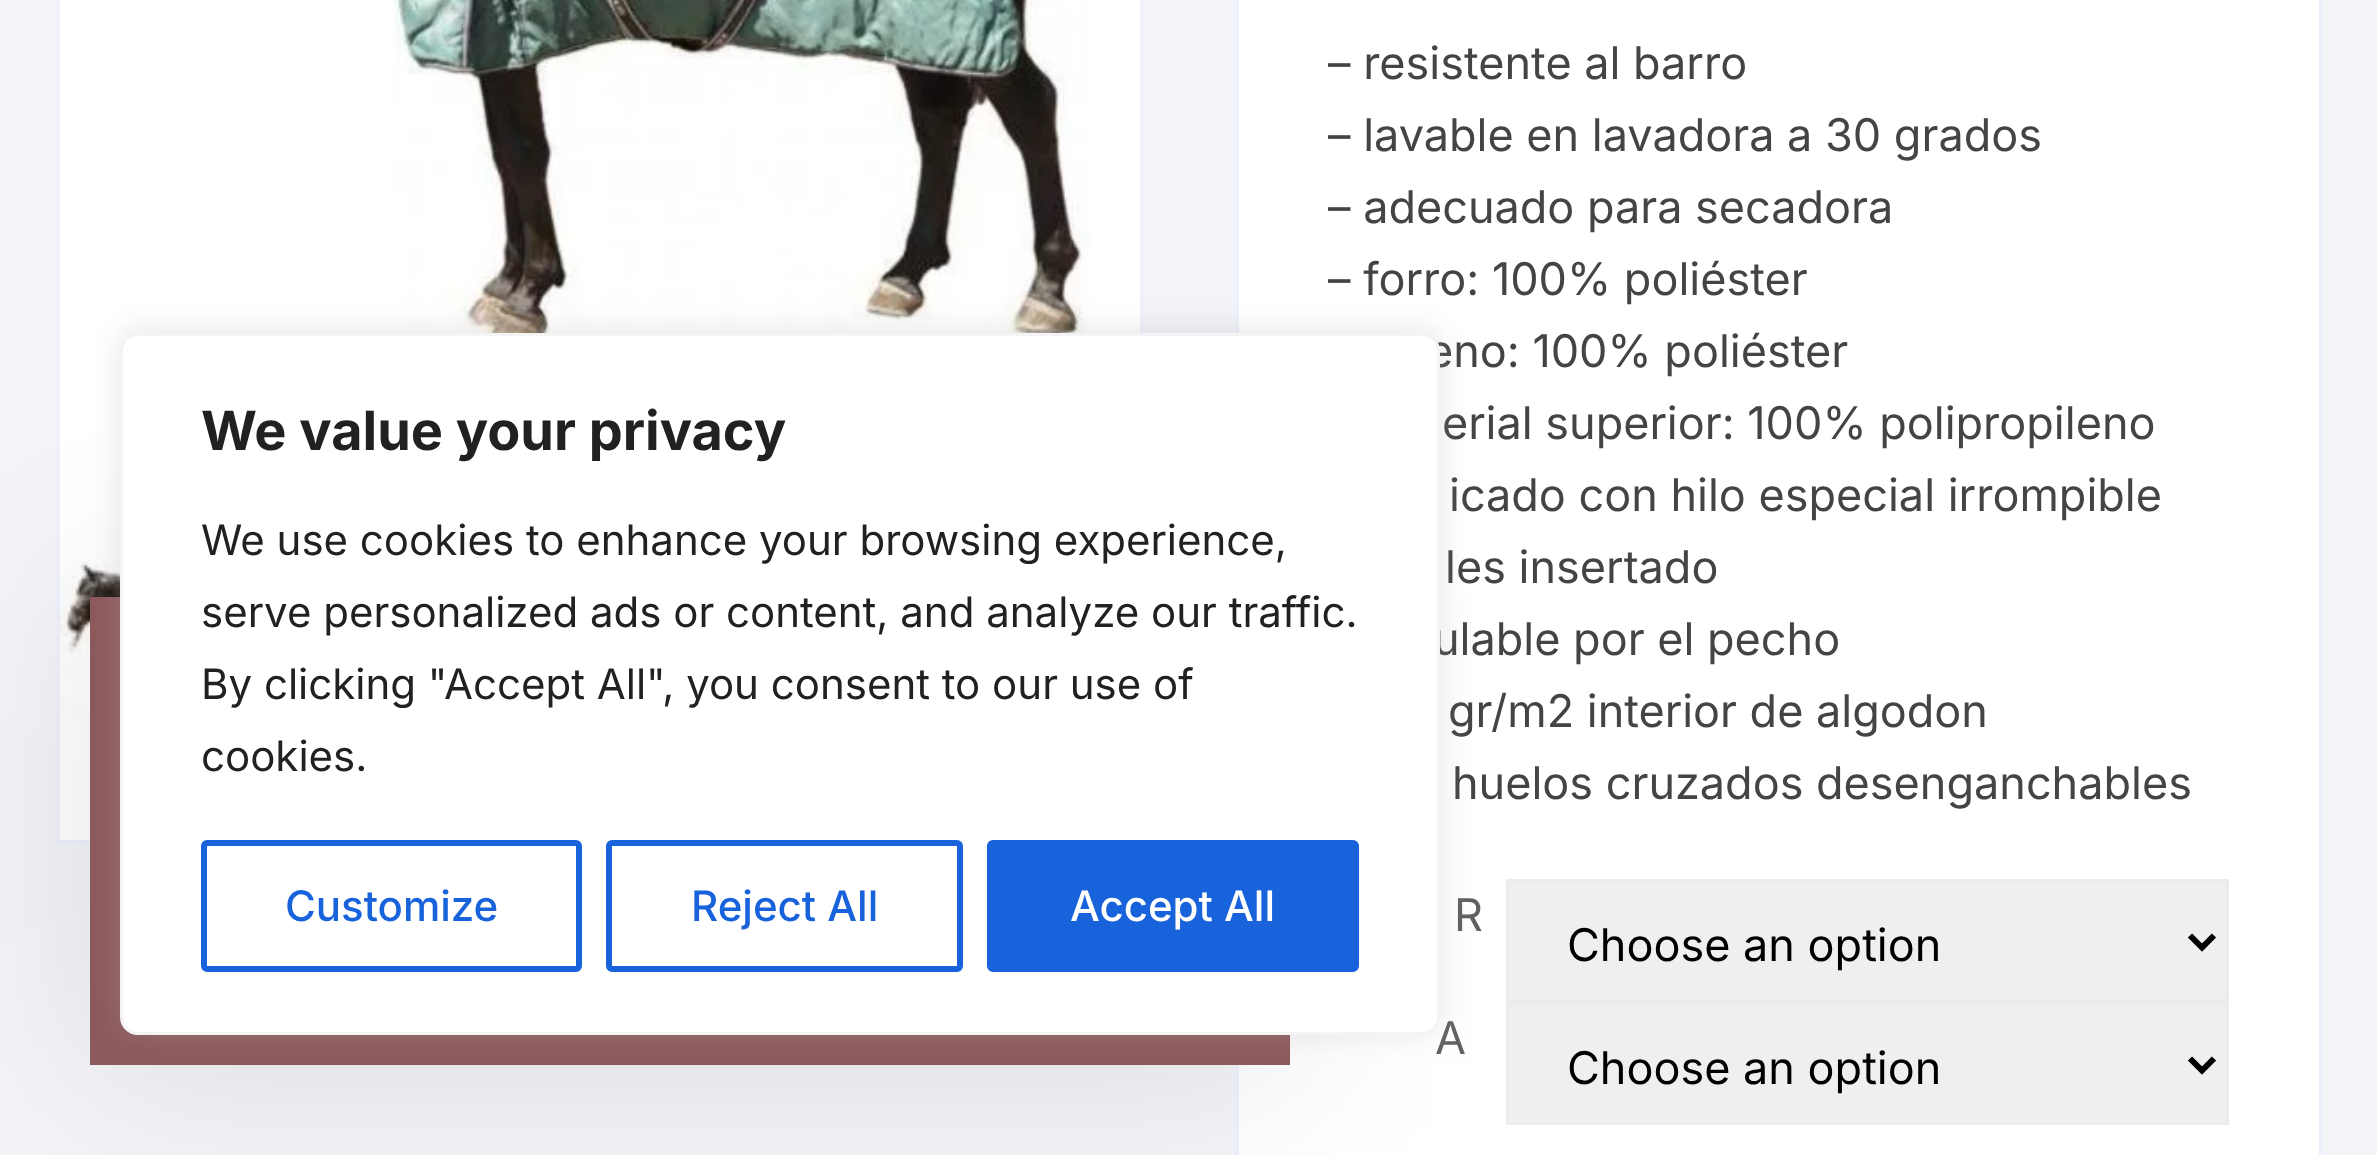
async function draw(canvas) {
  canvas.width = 2377
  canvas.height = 1155
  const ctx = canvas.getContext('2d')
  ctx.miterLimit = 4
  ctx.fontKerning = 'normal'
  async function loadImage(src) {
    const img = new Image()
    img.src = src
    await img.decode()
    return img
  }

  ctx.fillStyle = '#f3f4f8'
  ctx.fillRect(0, 0, 2377, 1155)
  ctx.fillStyle = '#fff'
  ctx.beginPath()
  ctx.rect(58.5, -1.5, 1083, 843)
  ctx.fill()
  ctx.strokeStyle = '#eef1fd'
  ctx.lineWidth = 3
  ctx.stroke()
  ctx.drawImage(await loadImage('image0.png'), 393, 0, 697, 333)
  ctx.drawImage(await loadImage('image1.png'), 60, 561, 60, 199)
  ctx.beginPath()
  ctx.rect(1237.5, -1.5, 1083, 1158)
  ctx.fill()
  ctx.stroke()
  ctx.fillStyle = '#efefef'
  ctx.beginPath()
  ctx.rect(1507.5, 880.5, 720, 120)
  ctx.fill()
  ctx.strokeStyle = '#ececec'
  ctx.stroke()
  ctx.beginPath()
  ctx.rect(1507.5, 1003.5, 720, 120)
  ctx.fill()
  ctx.stroke()
  ctx.fillStyle = '#0000001a'
  ctx.filter = 'blur(97.5px)'
  ctx.beginPath()
  ctx.rect(90, 597, 1200, 468)
  ctx.fill()
  ctx.filter = 'none'
  ctx.fillStyle = '#8c595c'
  ctx.fillRect(90, 597, 1200, 468)
  ctx.font = '45px Inter'
  ctx.fillStyle = '#444'
  ctx.fillText('– resistente al barro', 1328, 79)
  ctx.fillText('– lavable en lavadora a 30 grados', 1328, 151)
  ctx.fillText('– adecuado para secadora', 1328, 223)
  ctx.fillText('– forro: 100% poliéster', 1328, 295)
  ctx.fillText('eno: 100% poliéster', 1427, 367)
  ctx.fillText('erial superior: 100% polipropileno', 1442, 439)
  ctx.fillText('icado con hilo especial irrompible', 1449, 511)
  ctx.fillText('les insertado', 1445, 583)
  ctx.fillText('ulable por el pecho', 1433, 655)
  ctx.fillText('gr/m2 interior de algodon', 1448, 727)
  ctx.fillText('huelos cruzados desenganchables', 1452, 799)
  ctx.fillStyle = '#616161'
  ctx.fillText('R', 1454, 931)
  ctx.beginPath()
  ctx.moveTo(2190, 935.5)
  ctx.lineTo(2202, 947.5)
  ctx.lineTo(2214, 935.5)
  ctx.strokeStyle = '#000'
  ctx.lineWidth = 6
  ctx.stroke()
  ctx.fillStyle = '#000'
  ctx.fillText('Choose an option', 1567, 961)
  ctx.fillStyle = '#616161'
  ctx.fillText('A', 1435, 1054)
  ctx.beginPath()
  ctx.moveTo(2190, 1058.5)
  ctx.lineTo(2202, 1070.5)
  ctx.lineTo(2214, 1058.5)
  ctx.stroke()
  ctx.fillStyle = '#000'
  ctx.fillText('Choose an option', 1567, 1084)
  ctx.fillStyle = '#acabab4d'
  ctx.filter = 'blur(15px)'
  ctx.beginPath()
  ctx.roundRect(120, 330, 1320, 702, 18)
  ctx.fill()
  ctx.filter = 'none'
  ctx.fillStyle = '#fff'
  ctx.beginPath()
  ctx.roundRect(121.5, 334.5, 1317, 699, 16.5)
  ctx.fill()
  ctx.strokeStyle = '#f4f4f4'
  ctx.lineWidth = 3
  ctx.stroke()
  ctx.font = 'bold 54px Inter'
  ctx.fillStyle = '#212121'
  ctx.fillText('We value your privacy', 201, 450)
  ctx.font = '42px Inter'
  ctx.fillText('We use cookies to enhance your browsing experience,', 201, 555)
  ctx.fillText('serve personalized ads or content, and analyze our traffic.', 201, 627)
  ctx.fillText('By clicking "Accept All", you consent to our use of', 201, 699)
  ctx.fillText('cookies.', 201, 771)
  ctx.beginPath()
  ctx.roundRect(204, 843, 375, 126, 3)
  ctx.strokeStyle = '#1863dc'
  ctx.lineWidth = 6
  ctx.stroke()
  ctx.font = '500 42px Inter'
  ctx.fillStyle = '#1863dc'
  ctx.fillText('Customize', 285, 921)
  ctx.beginPath()
  ctx.roundRect(609, 843, 351, 126, 3)
  ctx.stroke()
  ctx.fillText('Reject All', 691, 921)
  ctx.beginPath()
  ctx.roundRect(990, 843, 366, 126, 3)
  ctx.fill()
  ctx.stroke()
  ctx.fillStyle = '#fff'
  ctx.fillText('Accept All', 1070, 921)
}

draw(document.querySelector('canvas'))
